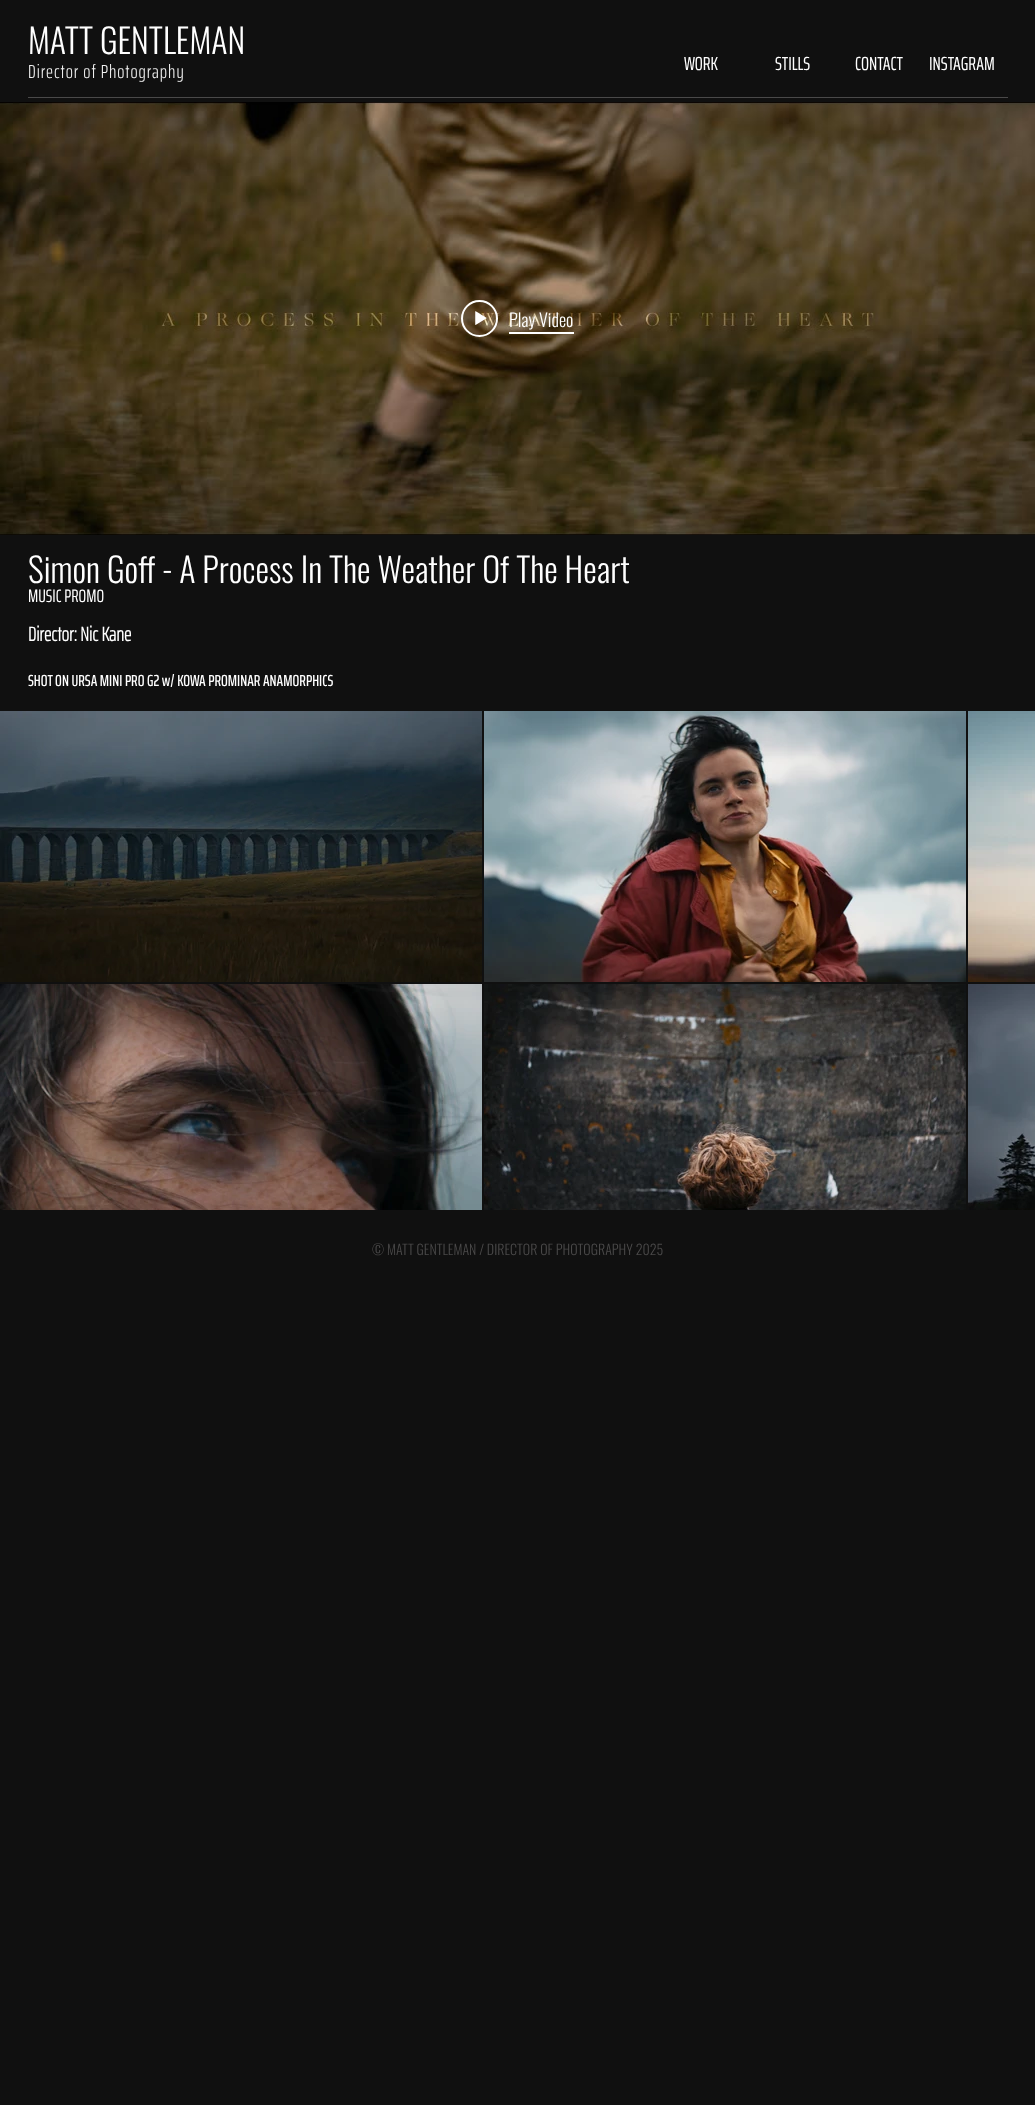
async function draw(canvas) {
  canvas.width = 1035
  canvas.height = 2105
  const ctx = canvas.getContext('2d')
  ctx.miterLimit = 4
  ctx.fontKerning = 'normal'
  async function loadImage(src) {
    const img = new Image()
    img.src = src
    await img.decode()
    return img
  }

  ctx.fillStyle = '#101010'
  ctx.fillRect(0, 0, 1035, 2105)
  ctx.font = '300 34px Oswald'
  ctx.fillStyle = '#fff'
  ctx.fillText('MATT GENTLEMAN', 28, 54)
  ctx.letterSpacing = '0.95px'
  ctx.font = '300 19px Saira ExtraCondensed'
  ctx.fillStyle = '#f1f1f1'
  ctx.fillText('Director of Photography', 28, 78)
  ctx.letterSpacing = '0px'
  ctx.font = '19px Saira ExtraCondensed'
  ctx.fillStyle = '#fff'
  ctx.fillText('WORK', 684, 70)
  ctx.fillText('STILLS', 775, 70)
  ctx.fillText('CONTACT', 855, 70)
  ctx.fillText('INSTAGRAM', 929, 70)
  ctx.fillStyle = '#4a4949'
  ctx.fillRect(28, 97, 980, 1)
  ctx.drawImage(await loadImage('image0.png'), 0, 102, 1035, 433)
  ctx.beginPath()
  ctx.arc(479.5, 318.5, 17.5, 0, 2 * Math.PI)
  ctx.strokeStyle = '#fff'
  ctx.lineWidth = 2
  ctx.stroke()
  ctx.drawImage(await loadImage('image1.png'), 475, 311, 12, 14)
  ctx.fillStyle = '#fff'
  ctx.fillRect(509, 332, 65, 2)
  ctx.font = '300 18px Oswald'
  ctx.fillText('Play Video', 509, 327)
  ctx.font = '300 34px Oswald'
  ctx.fillText('Simon Goff - A Process In The Weather Of The Heart', 28, 583)
  ctx.font = '18px Saira ExtraCondensed'
  ctx.fillText('MUSIC PROMO', 28, 602)
  ctx.font = 'bold 20px Saira ExtraCondensed'
  ctx.fillText('Director: Nic Kane', 28, 641)
  ctx.font = '500 16px Saira ExtraCondensed'
  ctx.fillText('SHOT ON URSA MINI PRO G2 w/ KOWA PROMINAR ANAMORPHICS', 28, 686)
  ctx.drawImage(await loadImage('image2.png'), 0, 711, 482, 271)
  ctx.drawImage(await loadImage('image3.png'), 484, 711, 482, 271)
  ctx.drawImage(await loadImage('image4.png'), 968, 711, 67, 271)
  ctx.drawImage(await loadImage('image5.png'), 0, 984, 482, 226)
  ctx.drawImage(await loadImage('image6.png'), 484, 984, 482, 226)
  ctx.drawImage(await loadImage('image7.png'), 968, 984, 67, 226)
  ctx.font = '300 14px Oswald'
  ctx.fillStyle = '#4a4949'
  ctx.fillText('© MATT GENTLEMAN / DIRECTOR OF PHOTOGRAPHY 2025', 372, 1255)
}

draw(document.querySelector('canvas'))
